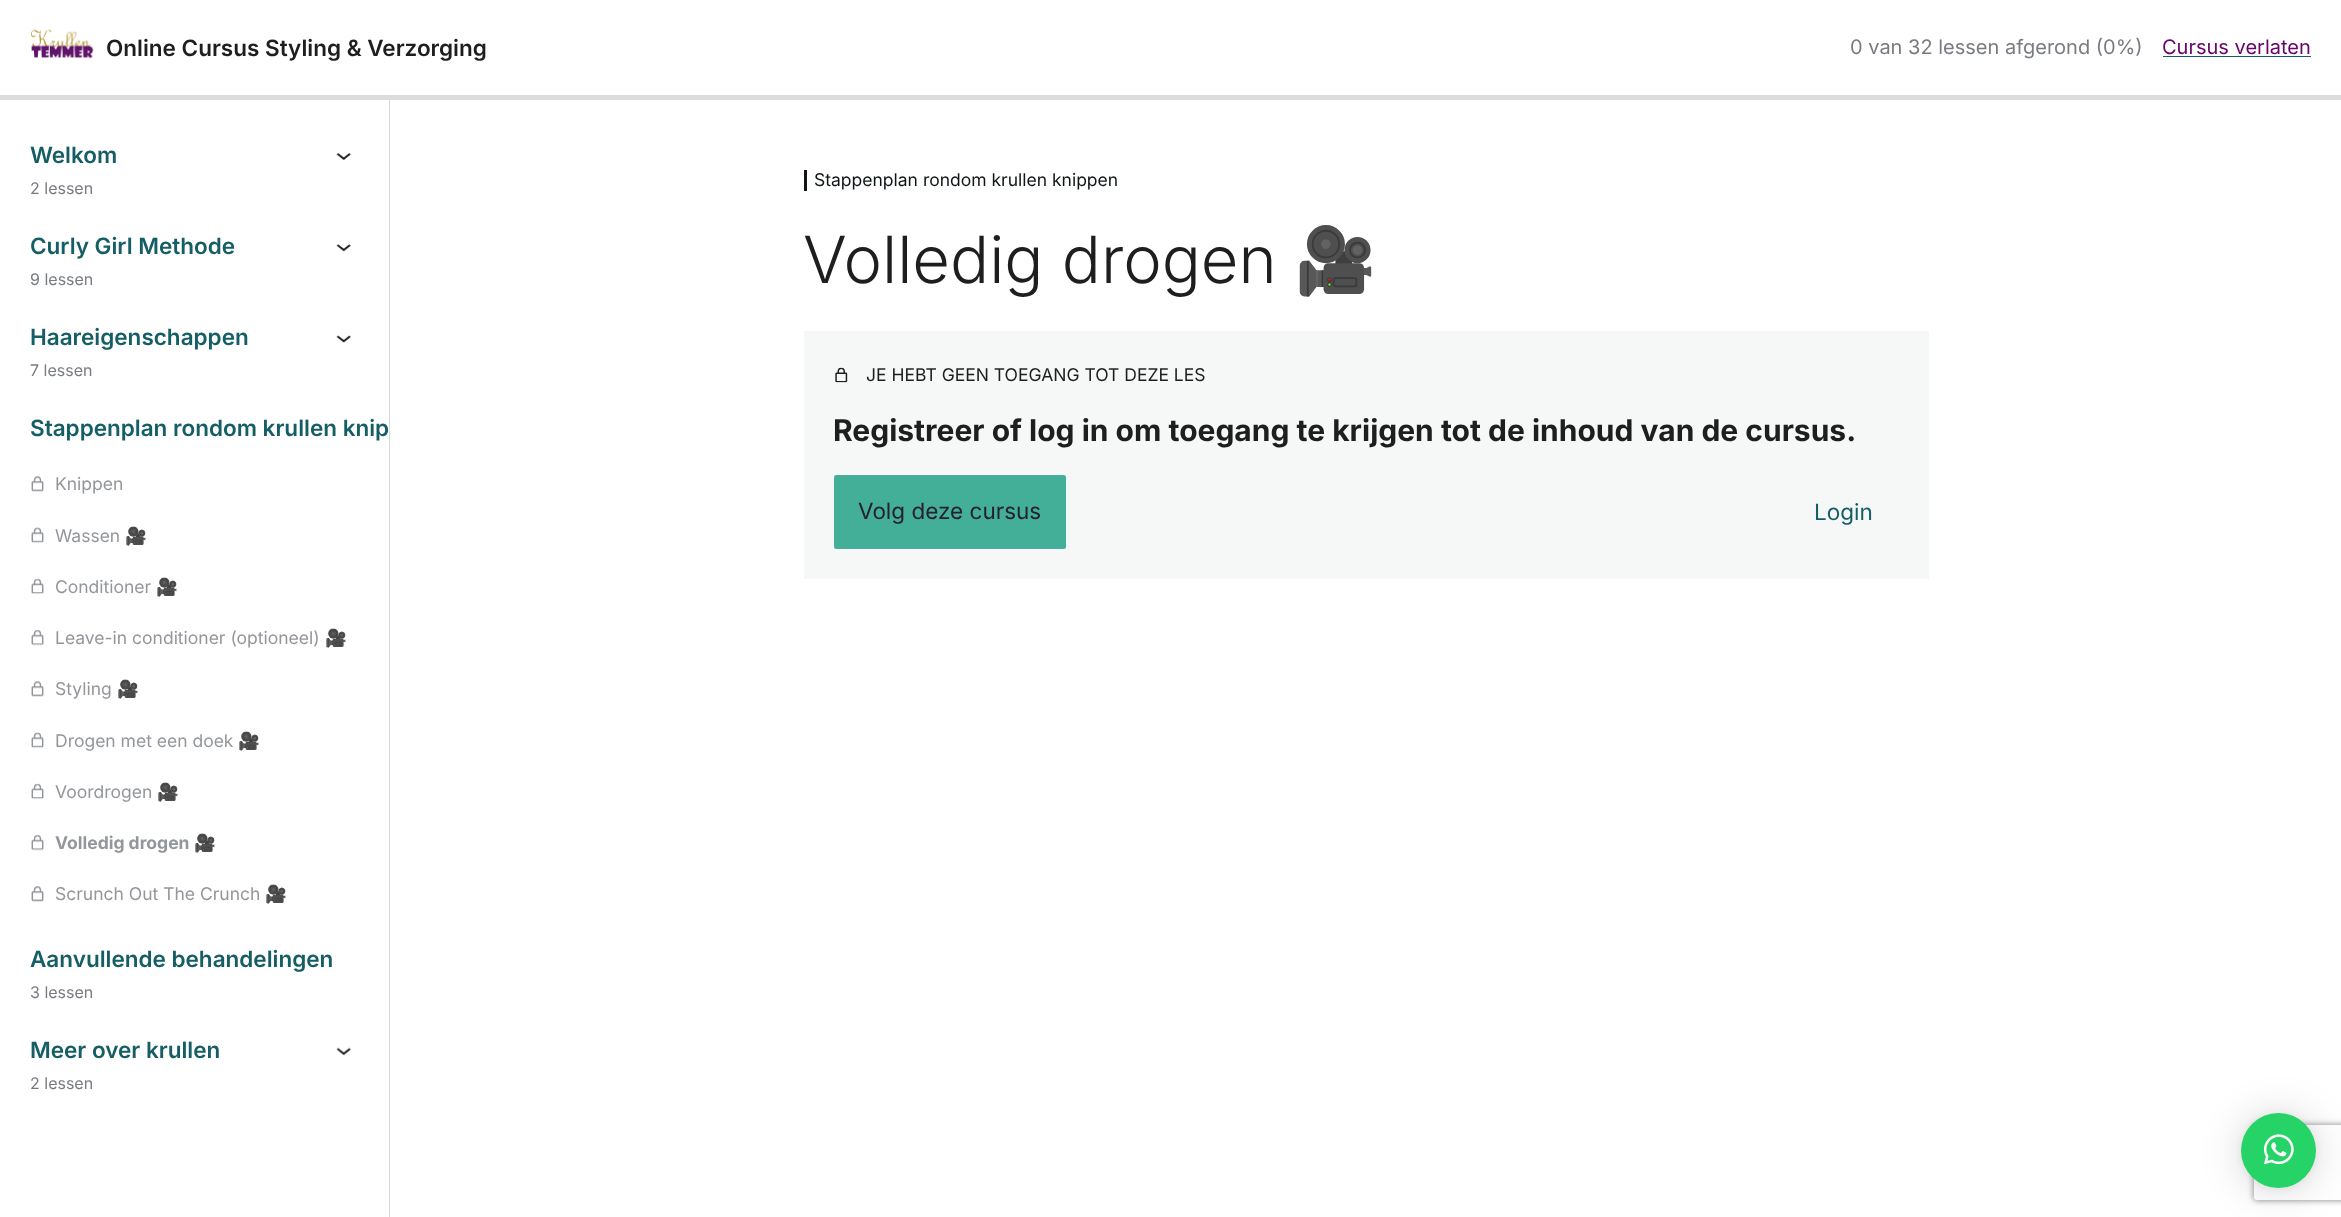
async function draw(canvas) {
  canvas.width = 2341
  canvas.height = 1217
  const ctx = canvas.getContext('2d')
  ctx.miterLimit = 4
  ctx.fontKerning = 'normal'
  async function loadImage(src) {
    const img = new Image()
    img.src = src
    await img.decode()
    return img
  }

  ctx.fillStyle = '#fff'
  ctx.fillRect(0, 0, 2341, 1217)
  ctx.drawImage(await loadImage('image0.png'), 31, 29, 63, 30)
  ctx.font = '600 22.5px Inter'
  ctx.fillStyle = '#1e1e1e'
  ctx.fillText('Online Cursus Styling & Verzorging', 106, 56)
  ctx.font = '20px Inter'
  ctx.fillStyle = '#787c82'
  ctx.fillText('0 van 32 lessen afgerond (0%)', 1850, 54)
  ctx.fillStyle = '#69026d'
  ctx.fillText('Cursus verlaten', 2162, 54)
  ctx.fillStyle = '#155e65'
  ctx.fillRect(2163, 56, 148, 1)
  ctx.fillStyle = '#dcdcde'
  ctx.fillRect(0, 95, 2341, 5)
  ctx.fillStyle = '#d8d8d8'
  ctx.fillRect(389, 100, 1, 1117)
  ctx.font = '600 22.5px Inter'
  ctx.fillStyle = '#155e65'
  ctx.fillText('Welkom', 30, 163)
  ctx.drawImage(await loadImage('image1.png'), 336, 153, 15, 7)
  ctx.font = '16px Inter'
  ctx.fillStyle = '#787c82'
  ctx.fillText('2 lessen', 30, 194)
  ctx.font = '600 22.5px Inter'
  ctx.fillStyle = '#155e65'
  ctx.fillText('Curly Girl Methode', 30, 254)
  ctx.drawImage(await loadImage('image2.png'), 336, 244, 15, 8)
  ctx.font = '16px Inter'
  ctx.fillStyle = '#787c82'
  ctx.fillText('9 lessen', 30, 285)
  ctx.font = '600 22.5px Inter'
  ctx.fillStyle = '#155e65'
  ctx.fillText('Haareigenschappen', 30, 345)
  ctx.drawImage(await loadImage('image3.png'), 336, 335, 15, 8)
  ctx.font = '16px Inter'
  ctx.fillStyle = '#787c82'
  ctx.fillText('7 lessen', 30, 376)
  ctx.font = '600 22.5px Inter'
  ctx.fillStyle = '#155e65'
  ctx.fillText('Stappenplan rondom krullen knip', 30, 436)
  ctx.drawImage(await loadImage('image4.png'), 31, 476, 13, 16)
  ctx.font = '17.5px Inter'
  ctx.fillStyle = '#93969b'
  ctx.fillText('Knippen', 55, 490)
  ctx.drawImage(await loadImage('image5.png'), 31, 527, 13, 16)
  ctx.fillText('Wassen', 55, 542)
  ctx.font = '17.5px Noto Color Emoji'
  ctx.fillText('🎥', 125, 542)
  ctx.drawImage(await loadImage('image6.png'), 31, 578, 13, 16)
  ctx.font = '17.5px Inter'
  ctx.fillText('Conditioner', 55, 593)
  ctx.font = '17.5px Noto Color Emoji'
  ctx.fillText('🎥', 156, 593)
  ctx.drawImage(await loadImage('image7.png'), 31, 630, 13, 16)
  ctx.font = '17.5px Inter'
  ctx.fillText('Leave-in conditioner (optioneel)', 55, 644)
  ctx.font = '17.5px Noto Color Emoji'
  ctx.fillText('🎥', 325, 644)
  ctx.drawImage(await loadImage('image8.png'), 31, 681, 13, 16)
  ctx.font = '17.5px Inter'
  ctx.fillText('Styling', 55, 695)
  ctx.font = '17.5px Noto Color Emoji'
  ctx.fillText('🎥', 117, 695)
  ctx.drawImage(await loadImage('image5.png'), 31, 732, 13, 16)
  ctx.font = '17.5px Inter'
  ctx.fillText('Drogen met een doek', 55, 747)
  ctx.font = '17.5px Noto Color Emoji'
  ctx.fillText('🎥', 238, 747)
  ctx.drawImage(await loadImage('image6.png'), 31, 783, 13, 16)
  ctx.font = '17.5px Inter'
  ctx.fillText('Voordrogen', 55, 798)
  ctx.font = '17.5px Noto Color Emoji'
  ctx.fillText('🎥', 157, 798)
  ctx.drawImage(await loadImage('image7.png'), 31, 835, 13, 16)
  ctx.font = 'bold 17.5px Inter'
  ctx.fillText('Volledig drogen', 55, 849)
  ctx.font = 'bold 17.5px Noto Color Emoji'
  ctx.fillText('🎥', 194, 849)
  ctx.drawImage(await loadImage('image9.png'), 31, 886, 13, 16)
  ctx.font = '17.5px Inter'
  ctx.fillText('Scrunch Out The Crunch', 55, 900)
  ctx.font = '17.5px Noto Color Emoji'
  ctx.fillText('🎥', 265, 900)
  ctx.font = '600 22.5px Inter'
  ctx.fillStyle = '#155e65'
  ctx.fillText('Aanvullende behandelingen', 30, 967)
  ctx.font = '16px Inter'
  ctx.fillStyle = '#787c82'
  ctx.fillText('3 lessen', 30, 998)
  ctx.font = '600 22.5px Inter'
  ctx.fillStyle = '#155e65'
  ctx.fillText('Meer over krullen', 30, 1058)
  ctx.drawImage(await loadImage('image10.png'), 336, 1047, 15, 9)
  ctx.font = '16px Inter'
  ctx.fillStyle = '#787c82'
  ctx.fillText('2 lessen', 30, 1089)
  ctx.fillStyle = '#101517'
  ctx.fillRect(804, 170, 3, 21)
  ctx.font = '17.5px Inter'
  ctx.fillText('Stappenplan rondom krullen knippen', 814, 186)
  ctx.font = '300 65px Inter'
  ctx.fillStyle = '#1e1e1e'
  ctx.fillText('Volledig drogen', 803, 283)
  ctx.font = '65px Noto Color Emoji'
  ctx.fillText('🎥', 1295, 283)
  ctx.fillStyle = '#f6f7f7'
  ctx.fillRect(804, 331, 1125, 248)
  ctx.drawImage(await loadImage('image11.png'), 835, 367, 13, 16)
  ctx.font = '17.5px Inter'
  ctx.fillStyle = '#1e1e1e'
  ctx.fillText('JE HEBT GEEN TOEGANG TOT DEZE LES', 866, 381)
  ctx.font = 'bold 30px Inter'
  ctx.fillText('Registreer of log in om toegang te krijgen tot de inhoud van de cursus.', 833, 441)
  ctx.fillStyle = '#43af99'
  ctx.beginPath()
  ctx.roundRect(834, 475, 232, 74, 2.5)
  ctx.fill()
  ctx.font = '22.5px Inter'
  ctx.fillStyle = '#26212e'
  ctx.fillText('Volg deze cursus', 858, 519)
  ctx.fillStyle = '#155e65'
  ctx.fillText('Login', 1814, 520)
  ctx.fillStyle = '#00000029'
  ctx.filter = 'blur(20px)'
  ctx.beginPath()
  ctx.roundRect(2241, 1115, 75, 75, 37.5)
  ctx.fill()
  ctx.filter = 'none'
  ctx.fillStyle = '#0000000f'
  ctx.filter = 'blur(4px)'
  ctx.beginPath()
  ctx.roundRect(2241, 1114, 75, 75, 37.5)
  ctx.fill()
  ctx.filter = 'none'
  ctx.save()
  ctx.beginPath()
  ctx.moveTo(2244, 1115)
  ctx.lineTo(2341, 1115)
  ctx.lineTo(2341, 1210)
  ctx.lineTo(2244, 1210)
  ctx.closePath()
  ctx.moveTo(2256.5, 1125)
  ctx.lineTo(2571.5, 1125)
  ctx.bezierCurveTo(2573, 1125, 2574, 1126, 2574, 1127.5)
  ctx.lineTo(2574, 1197.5)
  ctx.bezierCurveTo(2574, 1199, 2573, 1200, 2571.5, 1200)
  ctx.lineTo(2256.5, 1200)
  ctx.bezierCurveTo(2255, 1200, 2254, 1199, 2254, 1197.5)
  ctx.lineTo(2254, 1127.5)
  ctx.bezierCurveTo(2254, 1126, 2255, 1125, 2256.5, 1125)
  ctx.closePath()
  ctx.clip('evenodd')
  ctx.fillStyle = '#808080'
  ctx.filter = 'blur(3px)'
  ctx.beginPath()
  ctx.roundRect(2254, 1125, 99, 75, 2.5)
  ctx.fill()
  ctx.filter = 'none'
  ctx.restore()
  ctx.fillStyle = '#25d366'
  ctx.beginPath()
  ctx.arc(2278.5, 1150.5, 37.5, 0, 2 * Math.PI)
  ctx.fill()
  ctx.drawImage(await loadImage('image12.png'), 2263, 1134, 31, 31)
}

draw(document.querySelector('canvas'))
